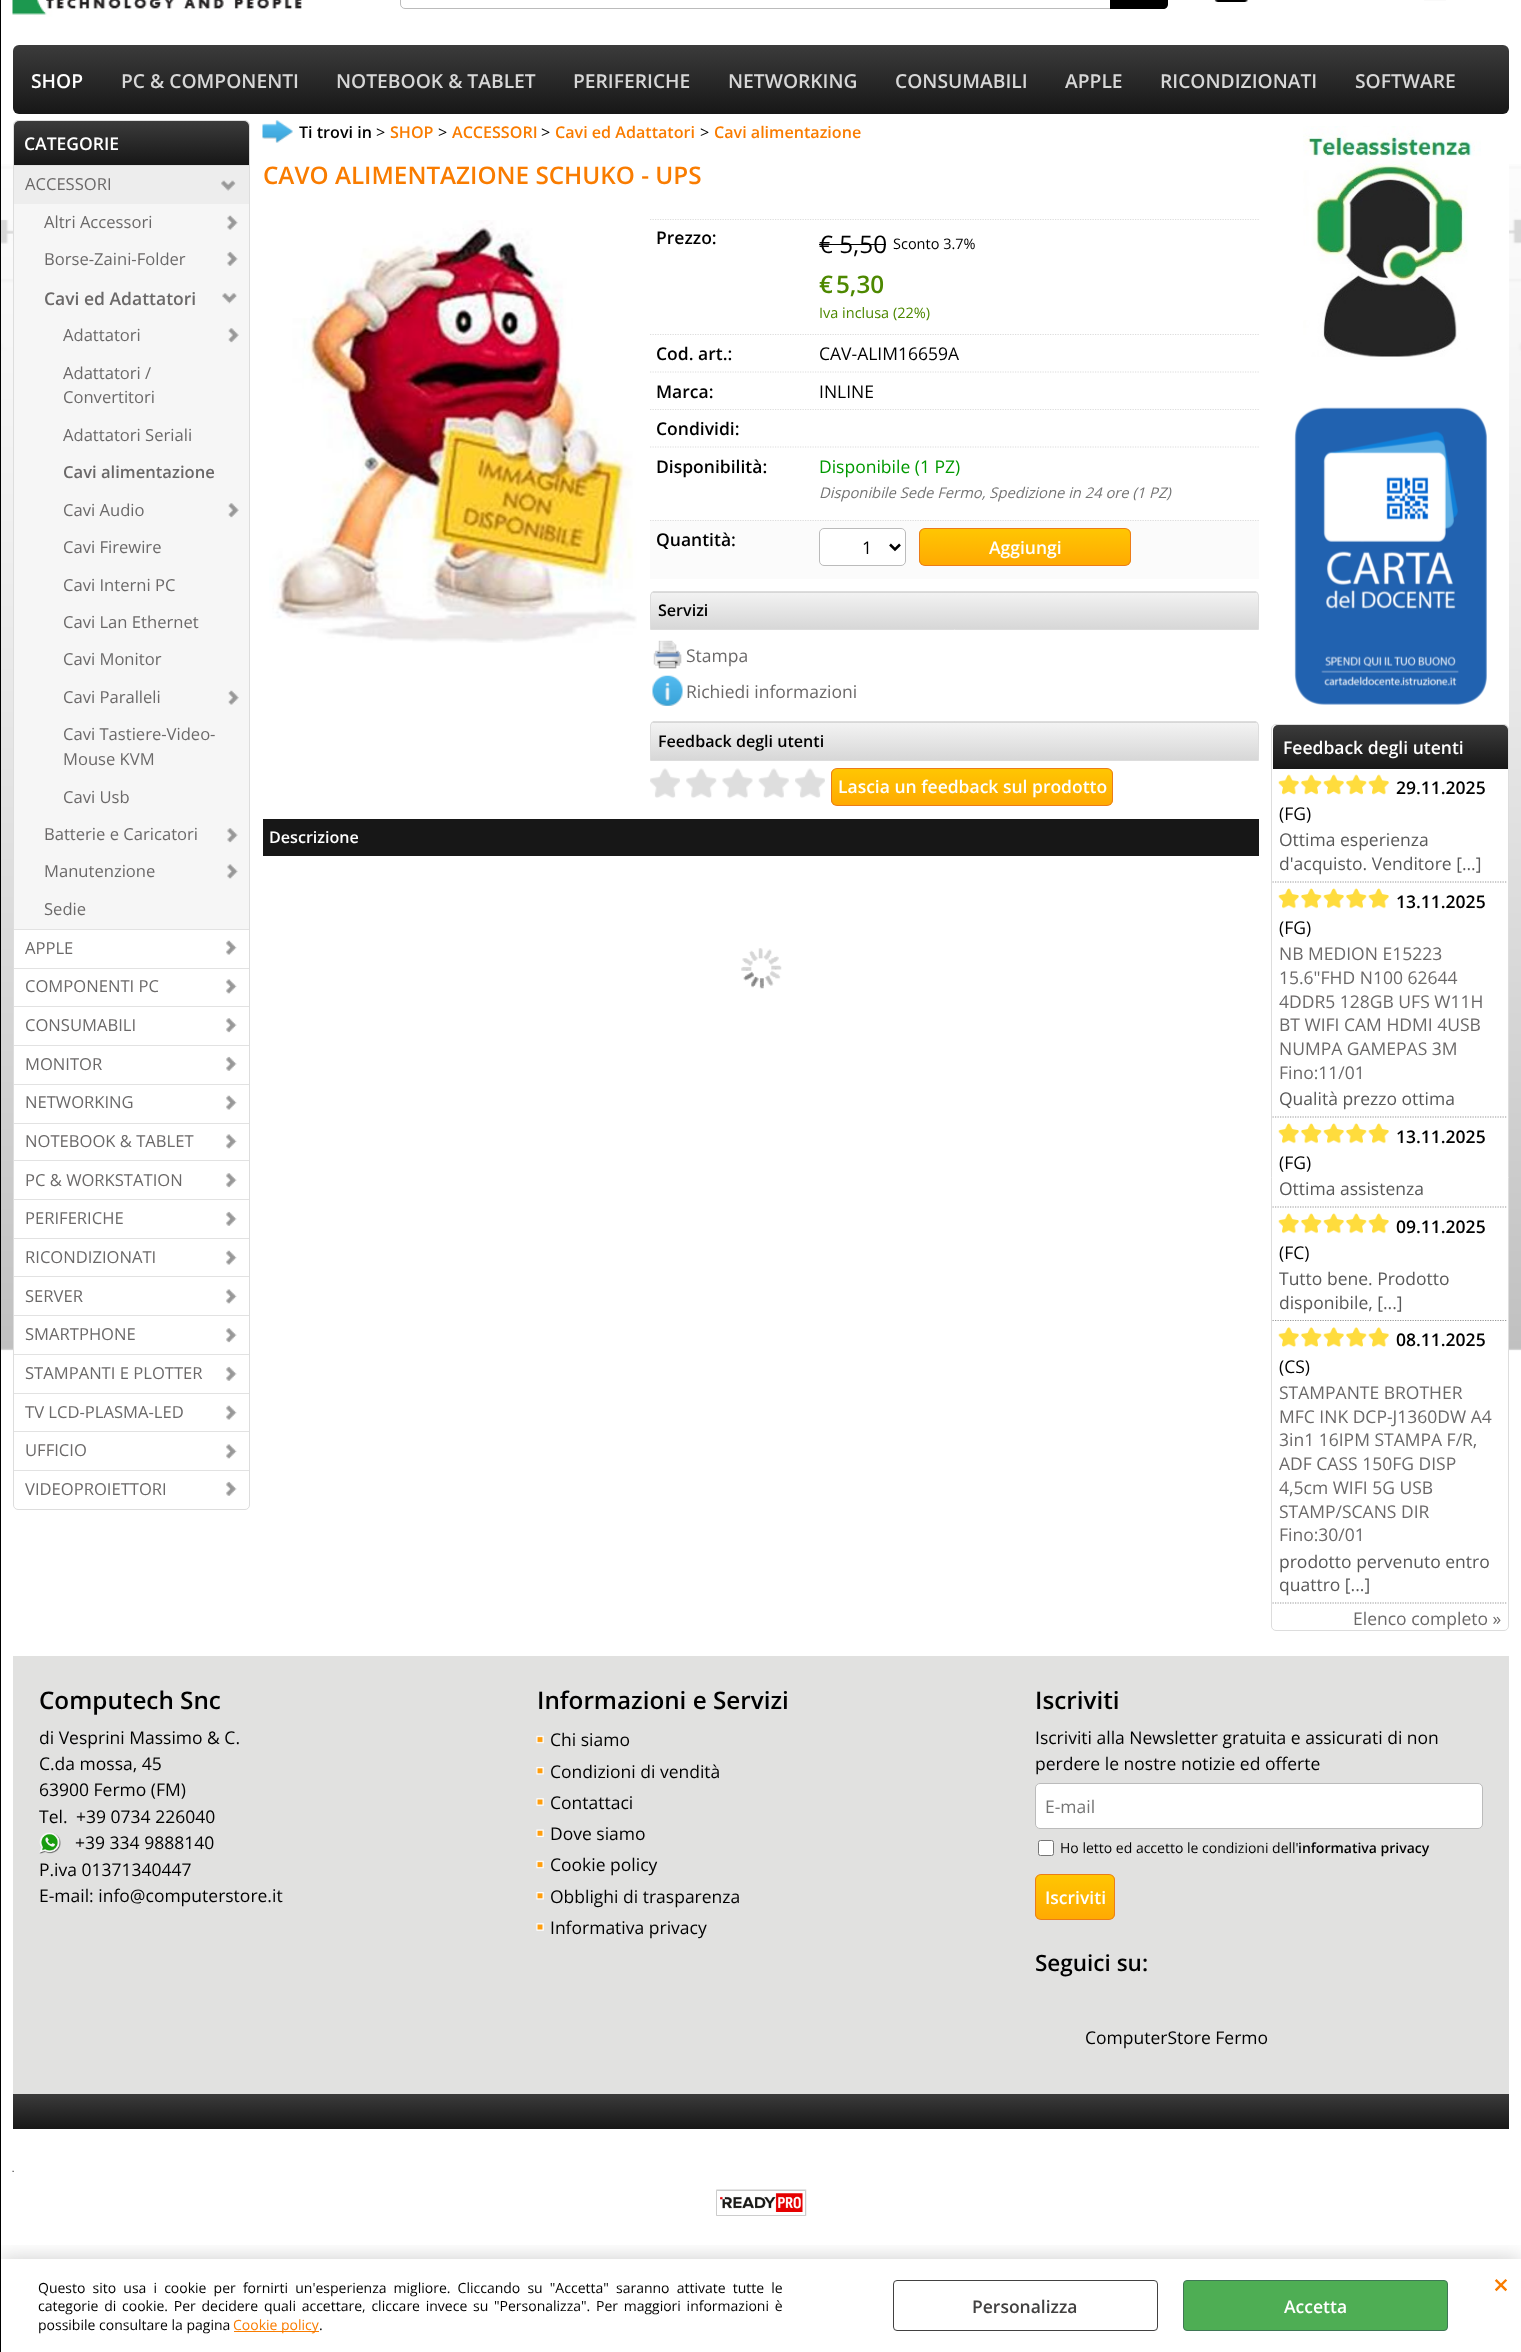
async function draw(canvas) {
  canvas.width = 1521
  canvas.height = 2352
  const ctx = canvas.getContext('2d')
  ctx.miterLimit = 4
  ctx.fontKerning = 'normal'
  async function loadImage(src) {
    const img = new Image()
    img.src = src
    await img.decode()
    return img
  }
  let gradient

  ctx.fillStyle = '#fff'
  ctx.fillRect(0, 0, 1521, 2352)
  ctx.drawImage(await loadImage('image0.png'), 1, 164, 1520, 2052)
  ctx.save()
  ctx.beginPath()
  ctx.rect(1, 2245, 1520, 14)
  ctx.clip()
  ctx.fillStyle = '#00000033'
  ctx.filter = 'blur(11px)'
  ctx.beginPath()
  ctx.rect(0, 2259, 1521, 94)
  ctx.fill()
  ctx.filter = 'none'
  ctx.restore()
  ctx.fillStyle = '#000'
  ctx.fillRect(0, 0, 1, 2352)
  ctx.drawImage(await loadImage('image1.png'), 12, 0, 290, 17)
  ctx.beginPath()
  ctx.roundRect(400.5, -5.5, 767, 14, 4.5)
  ctx.strokeStyle = '#bbb'
  ctx.stroke()
  ctx.beginPath()
  ctx.moveTo(1110, -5)
  ctx.lineTo(1163, -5)
  ctx.bezierCurveTo(1166, -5, 1168, -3, 1168, 0)
  ctx.lineTo(1168, 4)
  ctx.bezierCurveTo(1168, 7, 1166, 9, 1163, 9)
  ctx.lineTo(1110, 9)
  ctx.closePath()
  ctx.fill()
  ctx.drawImage(await loadImage('image2.png'), 1214, 0, 34, 2)
  ctx.fillStyle = '#fafafa'
  ctx.fillRect(1424, 0, 22, 1)
  gradient = ctx.createLinearGradient(761, 45, 761, 114)
  gradient.addColorStop(0, '#3b3b3b')
  gradient.addColorStop(1, '#171717')
  ctx.fillStyle = gradient
  ctx.beginPath()
  ctx.roundRect(13, 45, 1496, 69, 6)
  ctx.fill()
  ctx.font = '600 19.25px Open Sans'
  ctx.fillStyle = '#fff'
  ctx.fillText('SHOP', 31, 88)
  ctx.fillStyle = '#d7d7d7'
  ctx.fillText('PC & COMPONENTI', 121, 88)
  ctx.fillText('NOTEBOOK & TABLET', 336, 88)
  ctx.fillText('PERIFERICHE', 573, 88)
  ctx.fillText('NETWORKING', 728, 88)
  ctx.fillText('CONSUMABILI', 895, 88)
  ctx.fillText('APPLE', 1065, 88)
  ctx.fillText('RICONDIZIONATI', 1160, 88)
  ctx.fillText('SOFTWARE', 1355, 88)
  ctx.fillStyle = '#fff'
  ctx.fillRect(13, 164, 1496, 1187)
  ctx.beginPath()
  ctx.roundRect(13.5, 120.5, 236, 1389, 4.5)
  ctx.strokeStyle = '#ddd'
  ctx.stroke()
  gradient = ctx.createLinearGradient(131, 121, 131, 165)
  gradient.addColorStop(0, '#3b3b3b')
  gradient.addColorStop(1, '#171717')
  ctx.fillStyle = gradient
  ctx.beginPath()
  ctx.roundRect(14, 121, 235, 44, [5, 5, 0, 0])
  ctx.fill()
  ctx.font = '600 17.5px Open Sans'
  ctx.fillStyle = '#fff'
  ctx.fillText('CATEGORIE', 24, 150)
  ctx.fillStyle = '#e2e2e2'
  ctx.fillRect(14, 165, 235, 1)
  ctx.fillStyle = '#ededed'
  ctx.fillRect(14, 166, 235, 38)
  ctx.drawImage(await loadImage('image3.png'), 221, 180, 15, 11)
  ctx.font = '16.6px Open Sans'
  ctx.fillStyle = '#6b6969'
  ctx.fillText('ACCESSORI', 25, 190)
  ctx.fillStyle = '#f6f6f6'
  ctx.fillRect(14, 204, 235, 725)
  ctx.drawImage(await loadImage('image4.png'), 227, 215, 11, 15)
  ctx.fillStyle = '#6b6969'
  ctx.fillText('Altri Accessori', 44, 228)
  ctx.drawImage(await loadImage('image5.png'), 227, 251, 11, 15)
  ctx.fillText('Borse-Zaini-Folder', 44, 265)
  ctx.drawImage(await loadImage('image6.png'), 222, 293, 15, 11)
  ctx.font = '600 17.5px Open Sans'
  ctx.fillText('Cavi ed Adattatori', 44, 305)
  ctx.drawImage(await loadImage('image7.png'), 228, 328, 11, 15)
  ctx.font = '16.6px Open Sans'
  ctx.fillText('Adattatori', 63, 341)
  ctx.fillText('Adattatori /', 63, 379)
  ctx.fillText('Convertitori', 63, 403)
  ctx.fillText('Adattatori Seriali', 63, 441)
  ctx.font = '600 16.6px Open Sans'
  ctx.fillText('Cavi alimentazione', 63, 478)
  ctx.drawImage(await loadImage('image8.png'), 228, 503, 11, 15)
  ctx.font = '16.6px Open Sans'
  ctx.fillText('Cavi Audio', 63, 516)
  ctx.fillText('Cavi Firewire', 63, 553)
  ctx.fillText('Cavi Interni PC', 63, 591)
  ctx.fillText('Cavi Lan Ethernet', 63, 628)
  ctx.fillText('Cavi Monitor', 63, 665)
  ctx.drawImage(await loadImage('image9.png'), 228, 690, 11, 15)
  ctx.fillText('Cavi Paralleli', 63, 703)
  ctx.fillText('Cavi Tastiere-Video-', 63, 740)
  ctx.fillText('Mouse KVM', 63, 765)
  ctx.fillText('Cavi Usb', 63, 803)
  ctx.drawImage(await loadImage('image10.png'), 227, 828, 11, 15)
  ctx.fillText('Batterie e Caricatori', 44, 840)
  ctx.drawImage(await loadImage('image11.png'), 227, 864, 11, 15)
  ctx.fillText('Manutenzione', 44, 877)
  ctx.fillText('Sedie', 44, 915)
  ctx.fillStyle = '#e2e2e2'
  ctx.fillRect(14, 929, 235, 1)
  ctx.drawImage(await loadImage('image12.png'), 226, 940, 11, 15)
  ctx.fillStyle = '#6b6969'
  ctx.fillText('APPLE', 25, 954)
  ctx.fillStyle = '#e2e2e2'
  ctx.fillRect(14, 968, 235, 1)
  ctx.drawImage(await loadImage('image13.png'), 226, 979, 11, 15)
  ctx.fillStyle = '#6b6969'
  ctx.fillText('COMPONENTI PC', 25, 992)
  ctx.fillStyle = '#e2e2e2'
  ctx.fillRect(14, 1006, 235, 1)
  ctx.drawImage(await loadImage('image14.png'), 226, 1018, 11, 15)
  ctx.fillStyle = '#6b6969'
  ctx.fillText('CONSUMABILI', 25, 1031)
  ctx.fillStyle = '#e2e2e2'
  ctx.fillRect(14, 1045, 235, 1)
  ctx.drawImage(await loadImage('image15.png'), 226, 1056, 11, 15)
  ctx.fillStyle = '#6b6969'
  ctx.fillText('MONITOR', 25, 1070)
  ctx.fillStyle = '#e2e2e2'
  ctx.fillRect(14, 1084, 235, 1)
  ctx.drawImage(await loadImage('image16.png'), 226, 1095, 11, 15)
  ctx.fillStyle = '#6b6969'
  ctx.fillText('NETWORKING', 25, 1108)
  ctx.fillStyle = '#e2e2e2'
  ctx.fillRect(14, 1123, 235, 1)
  ctx.drawImage(await loadImage('image13.png'), 226, 1134, 11, 15)
  ctx.fillStyle = '#6b6969'
  ctx.fillText('NOTEBOOK & TABLET', 25, 1147)
  ctx.fillStyle = '#e2e2e2'
  ctx.fillRect(14, 1160, 235, 1)
  ctx.drawImage(await loadImage('image14.png'), 226, 1173, 11, 15)
  ctx.fillStyle = '#6b6969'
  ctx.fillText('PC & WORKSTATION', 25, 1186)
  ctx.fillStyle = '#e2e2e2'
  ctx.fillRect(14, 1199, 235, 1)
  ctx.drawImage(await loadImage('image15.png'), 226, 1211, 11, 15)
  ctx.fillStyle = '#6b6969'
  ctx.fillText('PERIFERICHE', 25, 1224)
  ctx.fillStyle = '#e2e2e2'
  ctx.fillRect(14, 1238, 235, 1)
  ctx.drawImage(await loadImage('image16.png'), 226, 1250, 11, 15)
  ctx.fillStyle = '#6b6969'
  ctx.fillText('RICONDIZIONATI', 25, 1263)
  ctx.fillStyle = '#e2e2e2'
  ctx.fillRect(14, 1276, 235, 1)
  ctx.drawImage(await loadImage('image13.png'), 226, 1289, 11, 15)
  ctx.fillStyle = '#6b6969'
  ctx.fillText('SERVER', 25, 1302)
  ctx.fillStyle = '#e2e2e2'
  ctx.fillRect(14, 1315, 235, 1)
  ctx.drawImage(await loadImage('image14.png'), 226, 1328, 11, 15)
  ctx.fillStyle = '#6b6969'
  ctx.fillText('SMARTPHONE', 25, 1340)
  ctx.fillStyle = '#e2e2e2'
  ctx.fillRect(14, 1354, 235, 1)
  ctx.drawImage(await loadImage('image15.png'), 226, 1366, 11, 15)
  ctx.fillStyle = '#6b6969'
  ctx.fillText('STAMPANTI E PLOTTER', 25, 1379)
  ctx.fillStyle = '#e2e2e2'
  ctx.fillRect(14, 1393, 235, 1)
  ctx.drawImage(await loadImage('image16.png'), 226, 1405, 11, 15)
  ctx.fillStyle = '#6b6969'
  ctx.fillText('TV LCD-PLASMA-LED', 25, 1418)
  ctx.fillStyle = '#e2e2e2'
  ctx.fillRect(14, 1431, 235, 1)
  ctx.drawImage(await loadImage('image13.png'), 226, 1444, 11, 15)
  ctx.fillStyle = '#6b6969'
  ctx.fillText('UFFICIO', 25, 1456)
  ctx.fillStyle = '#e2e2e2'
  ctx.fillRect(14, 1470, 235, 1)
  ctx.drawImage(await loadImage('image17.png'), 226, 1481, 11, 15)
  ctx.fillStyle = '#6b6969'
  ctx.fillText('VIDEOPROIETTORI', 25, 1495)
  ctx.drawImage(await loadImage('image18.png'), 262, 120, 31, 23)
  ctx.font = '600 16.1px Open Sans'
  ctx.fillStyle = '#000'
  ctx.fillText('Ti trovi in', 299, 138)
  ctx.font = '16.1px Open Sans'
  ctx.fillText('>', 376, 138)
  ctx.font = '600 16.1px Open Sans'
  ctx.fillStyle = '#f97c00'
  ctx.fillText('SHOP', 390, 138)
  ctx.font = '16.1px Open Sans'
  ctx.fillStyle = '#000'
  ctx.fillText('>', 438, 138)
  ctx.font = '600 16.1px Open Sans'
  ctx.fillStyle = '#f97c00'
  ctx.fillText('ACCESSORI', 452, 138)
  ctx.font = '16.1px Open Sans'
  ctx.fillStyle = '#000'
  ctx.fillText('>', 541, 138)
  ctx.font = '600 16.1px Open Sans'
  ctx.fillStyle = '#f97c00'
  ctx.fillText('Cavi ed Adattatori', 555, 138)
  ctx.font = '16.1px Open Sans'
  ctx.fillStyle = '#000'
  ctx.fillText('>', 700, 138)
  ctx.font = '600 16.1px Open Sans'
  ctx.fillStyle = '#f97c00'
  ctx.fillText('Cavi alimentazione', 714, 138)
  ctx.font = '600 24.25px Open Sans'
  ctx.fillText('CAVO ALIMENTAZIONE SCHUKO - UPS', 263, 184)
  ctx.drawImage(await loadImage('image19.png'), 269, 220, 368, 423)
  ctx.beginPath()
  ctx.moveTo(650, 219.5)
  ctx.lineTo(812.5, 219.5)
  ctx.lineWidth = 1.2
  ctx.setLineDash([1.25, 1.25])
  ctx.stroke()
  ctx.font = '600 17.5px Open Sans'
  ctx.fillStyle = '#000'
  ctx.fillText('Prezzo:', 656, 244)
  ctx.beginPath()
  ctx.moveTo(812.5, 219.5)
  ctx.lineTo(1259, 219.5)
  ctx.stroke()
  ctx.font = '24.25px Open Sans'
  ctx.fillText('€ 5,50', 819, 253)
  ctx.fillRect(819, 244, 67, 1)
  ctx.font = '14.5px Open Sans'
  ctx.fillText('Sconto 3.7%', 893, 249)
  ctx.font = '600 24.25px Open Sans'
  ctx.fillStyle = '#4d8800'
  ctx.fillText('€', 819, 293)
  ctx.fillText('5,30', 836, 293)
  ctx.font = '14.5px Open Sans'
  ctx.fillText('Iva inclusa (22%)', 819, 318)
  ctx.beginPath()
  ctx.moveTo(650, 334.5)
  ctx.lineTo(812.5, 334.5)
  ctx.stroke()
  ctx.font = '600 17.5px Open Sans'
  ctx.fillStyle = '#000'
  ctx.fillText('Cod. art.:', 656, 360)
  ctx.beginPath()
  ctx.moveTo(812.5, 334.5)
  ctx.lineTo(1259, 334.5)
  ctx.stroke()
  ctx.font = '17.5px Open Sans'
  ctx.fillText('CAV-ALIM16659A', 819, 360)
  ctx.beginPath()
  ctx.moveTo(650, 372)
  ctx.lineTo(812.5, 372)
  ctx.stroke()
  ctx.font = '600 17.5px Open Sans'
  ctx.fillText('Marca:', 656, 398)
  ctx.beginPath()
  ctx.moveTo(812.5, 372)
  ctx.lineTo(1259, 372)
  ctx.stroke()
  ctx.font = '17.5px Open Sans'
  ctx.fillText('INLINE', 819, 398)
  ctx.beginPath()
  ctx.moveTo(812.5, 409.5)
  ctx.lineTo(1259, 409.5)
  ctx.stroke()
  ctx.beginPath()
  ctx.moveTo(650, 409.5)
  ctx.lineTo(812.5, 409.5)
  ctx.stroke()
  ctx.font = '600 17.5px Open Sans'
  ctx.fillText('Condividi:', 656, 435)
  ctx.beginPath()
  ctx.moveTo(650, 447)
  ctx.lineTo(812.5, 447)
  ctx.stroke()
  ctx.fillText('Disponibilità:', 656, 473)
  ctx.beginPath()
  ctx.moveTo(812.5, 447)
  ctx.lineTo(1259, 447)
  ctx.stroke()
  ctx.font = '17.5px Open Sans'
  ctx.fillStyle = '#090'
  ctx.fillText('Disponibile (1 PZ)', 819, 473)
  ctx.font = 'italic 14.75px Open Sans'
  ctx.fillStyle = '#757575'
  ctx.fillText('Disponibile Sede Fermo, Spedizione in 24 ore (1 PZ)', 819, 498)
  ctx.fillStyle = '#fbfbfb'
  ctx.fillRect(650, 520, 609, 59)
  ctx.beginPath()
  ctx.moveTo(650, 520.5)
  ctx.lineTo(812.5, 520.5)
  ctx.stroke()
  ctx.font = '600 17.5px Open Sans'
  ctx.fillStyle = '#000'
  ctx.fillText('Quantità:', 656, 546)
  ctx.beginPath()
  ctx.moveTo(812.5, 520.5)
  ctx.lineTo(1259, 520.5)
  ctx.stroke()
  ctx.fillStyle = '#fff'
  ctx.beginPath()
  ctx.roundRect(819.5, 528.5, 86, 37, 4.5)
  ctx.fill()
  ctx.strokeStyle = '#bbb'
  ctx.lineWidth = 1
  ctx.setLineDash([])
  ctx.stroke()
  ctx.beginPath()
  ctx.moveTo(890, 544.5)
  ctx.lineTo(895, 549.5)
  ctx.lineTo(900, 544.5)
  ctx.strokeStyle = '#000'
  ctx.lineWidth = 2.5
  ctx.stroke()
  ctx.font = '17.5px Open Sans'
  ctx.fillStyle = '#000'
  ctx.fillText('1', 862, 554)
  ctx.save()
  ctx.beginPath()
  ctx.roundRect(919, 528, 212, 38, 6)
  ctx.clip()
  gradient = ctx.createLinearGradient(1025, 529, 1025, 565)
  gradient.addColorStop(0, '#ffc602')
  gradient.addColorStop(1, '#ffaa02')
  ctx.fillStyle = gradient
  ctx.fillRect(919, 529, 212, 36)
  ctx.restore()
  ctx.beginPath()
  ctx.roundRect(919.5, 528.5, 211, 37, 5.5)
  ctx.strokeStyle = '#eb7c19'
  ctx.lineWidth = 1
  ctx.stroke()
  ctx.font = '600 17.5px Open Sans'
  ctx.fillStyle = '#fff'
  ctx.fillText('Aggiungi', 989, 554)
  ctx.save()
  ctx.beginPath()
  ctx.roundRect(650, 591, 609, 39, [5, 5, 0, 0])
  ctx.clip()
  gradient = ctx.createLinearGradient(954, 556, 954, 593)
  gradient.addColorStop(0, '#f3f3f3')
  gradient.addColorStop(1, '#d7d7d7')
  ctx.fillStyle = gradient
  ctx.fillRect(650, 591, 609, 2)
  gradient = ctx.createLinearGradient(954, 592, 954, 629)
  gradient.addColorStop(0, '#f3f3f3')
  gradient.addColorStop(1, '#d7d7d7')
  ctx.fillStyle = gradient
  ctx.fillRect(650, 593, 609, 36)
  ctx.restore()
  ctx.beginPath()
  ctx.roundRect(650.5, 591.5, 608, 38, [4.5, 4.5, 0, 0])
  ctx.strokeStyle = '#ddd'
  ctx.stroke()
  ctx.font = '600 16.1px Open Sans'
  ctx.fillStyle = '#000'
  ctx.fillText('Servizi', 658, 616)
  ctx.drawImage(await loadImage('image20.png'), 653, 640, 29, 29)
  ctx.font = '17.5px Open Sans'
  ctx.fillStyle = '#6b6969'
  ctx.fillText('Stampa', 686, 662)
  ctx.drawImage(await loadImage('image21.png'), 652, 675, 31, 31)
  ctx.fillText('Richiedi informazioni', 686, 698)
  ctx.save()
  ctx.beginPath()
  ctx.roundRect(650, 721, 609, 40, [5, 5, 0, 0])
  ctx.clip()
  gradient = ctx.createLinearGradient(954, 685, 954, 723)
  gradient.addColorStop(0, '#f3f3f3')
  gradient.addColorStop(1, '#d7d7d7')
  ctx.fillStyle = gradient
  ctx.fillRect(650, 721, 609, 2)
  gradient = ctx.createLinearGradient(954, 723, 954, 760)
  gradient.addColorStop(0, '#f3f3f3')
  gradient.addColorStop(1, '#d7d7d7')
  ctx.fillStyle = gradient
  ctx.fillRect(650, 723, 609, 37)
  ctx.restore()
  ctx.beginPath()
  ctx.roundRect(650.5, 721.5, 608, 39, [4.5, 4.5, 0, 0])
  ctx.stroke()
  ctx.font = '600 16.1px Open Sans'
  ctx.fillStyle = '#000'
  ctx.fillText('Feedback degli utenti', 658, 747)
  ctx.drawImage(await loadImage('image22.png'), 650, 768, 30, 30)
  ctx.drawImage(await loadImage('image23.png'), 686, 768, 31, 30)
  ctx.drawImage(await loadImage('image24.png'), 722, 768, 31, 31)
  ctx.drawImage(await loadImage('image25.png'), 758, 768, 31, 30)
  ctx.drawImage(await loadImage('image22.png'), 795, 768, 30, 30)
  ctx.save()
  ctx.beginPath()
  ctx.roundRect(831, 768, 282, 38, 6)
  ctx.clip()
  gradient = ctx.createLinearGradient(972, 769, 972, 805)
  gradient.addColorStop(0, '#ffc602')
  gradient.addColorStop(1, '#ffaa02')
  ctx.fillStyle = gradient
  ctx.fillRect(831, 769, 282, 36)
  ctx.restore()
  ctx.beginPath()
  ctx.roundRect(831.5, 768.5, 281, 37, 5.5)
  ctx.strokeStyle = '#eb7c19'
  ctx.stroke()
  ctx.font = '600 17.5px Open Sans'
  ctx.fillStyle = '#fff'
  ctx.fillText('Lascia un feedback sul prodotto', 838, 793)
  ctx.fillStyle = '#171717'
  ctx.fillRect(263, 819, 996, 37)
  ctx.font = '600 16.1px Open Sans'
  ctx.fillStyle = '#fff'
  ctx.fillText('Descrizione', 269, 843)
  ctx.drawImage(await loadImage('image26.png'), 741, 948, 41, 41)
  ctx.drawImage(await loadImage('image27.png'), 1303, 126, 178, 231)
  ctx.drawImage(await loadImage('image28.png'), 1294, 407, 193, 298)
  ctx.beginPath()
  ctx.roundRect(1271.5, 724.5, 237, 906, 4.5)
  ctx.strokeStyle = '#ddd'
  ctx.stroke()
  gradient = ctx.createLinearGradient(1390, 725, 1390, 769)
  gradient.addColorStop(0, '#3b3b3b')
  gradient.addColorStop(1, '#171717')
  ctx.fillStyle = gradient
  ctx.beginPath()
  ctx.roundRect(1273, 725, 235, 44, [5, 5, 0, 0])
  ctx.fill()
  ctx.font = '600 17.5px Open Sans'
  ctx.fillStyle = '#fff'
  ctx.fillText('Feedback degli utenti', 1283, 754)
  ctx.beginPath()
  ctx.moveTo(1272.5, 882)
  ctx.lineTo(1507.5, 882)
  ctx.strokeStyle = '#999'
  ctx.lineWidth = 1.2
  ctx.setLineDash([1.25, 1.25])
  ctx.stroke()
  ctx.drawImage(await loadImage('image29.png'), 1278, 774, 21, 21)
  ctx.drawImage(await loadImage('image30.png'), 1301, 774, 21, 21)
  ctx.drawImage(await loadImage('image31.png'), 1323, 774, 21, 21)
  ctx.drawImage(await loadImage('image30.png'), 1346, 774, 21, 21)
  ctx.drawImage(await loadImage('image31.png'), 1368, 774, 21, 21)
  ctx.fillStyle = '#000'
  ctx.fillText('29.11.2025', 1396, 794)
  ctx.font = '17.5px Open Sans'
  ctx.fillText('(FG)', 1279, 820)
  ctx.fillStyle = '#585858'
  ctx.fillText('Ottima esperienza', 1279, 846)
  ctx.fillText('d\'acquisto. Venditore [...]', 1279, 870)
  ctx.beginPath()
  ctx.moveTo(1272.5, 1117)
  ctx.lineTo(1507.5, 1117)
  ctx.stroke()
  ctx.drawImage(await loadImage('image32.png'), 1278, 888, 21, 21)
  ctx.drawImage(await loadImage('image33.png'), 1301, 888, 21, 21)
  ctx.drawImage(await loadImage('image34.png'), 1323, 888, 21, 21)
  ctx.drawImage(await loadImage('image33.png'), 1346, 888, 21, 21)
  ctx.drawImage(await loadImage('image34.png'), 1368, 888, 21, 21)
  ctx.font = '600 17.5px Open Sans'
  ctx.fillStyle = '#000'
  ctx.fillText('13.11.2025', 1396, 908)
  ctx.font = '17.5px Open Sans'
  ctx.fillText('(FG)', 1279, 934)
  ctx.fillStyle = '#6b6969'
  ctx.fillText('NB MEDION E15223', 1279, 960)
  ctx.fillText('15.6"FHD N100 62644', 1279, 984)
  ctx.fillText('4DDR5 128GB UFS W11H', 1279, 1008)
  ctx.fillText('BT WIFI CAM HDMI 4USB', 1279, 1031)
  ctx.fillText('NUMPA GAMEPAS 3M', 1279, 1055)
  ctx.fillText('Fino:11/01', 1279, 1079)
  ctx.fillStyle = '#585858'
  ctx.fillText('Qualità prezzo ottima', 1279, 1105)
  ctx.beginPath()
  ctx.moveTo(1272.5, 1207)
  ctx.lineTo(1507.5, 1207)
  ctx.stroke()
  ctx.drawImage(await loadImage('image35.png'), 1278, 1123, 21, 21)
  ctx.drawImage(await loadImage('image36.png'), 1301, 1123, 21, 21)
  ctx.drawImage(await loadImage('image37.png'), 1323, 1123, 21, 21)
  ctx.drawImage(await loadImage('image36.png'), 1346, 1123, 21, 21)
  ctx.drawImage(await loadImage('image37.png'), 1368, 1123, 21, 21)
  ctx.font = '600 17.5px Open Sans'
  ctx.fillStyle = '#000'
  ctx.fillText('13.11.2025', 1396, 1143)
  ctx.font = '17.5px Open Sans'
  ctx.fillText('(FG)', 1279, 1169)
  ctx.fillStyle = '#585858'
  ctx.fillText('Ottima assistenza', 1279, 1195)
  ctx.beginPath()
  ctx.moveTo(1272.5, 1320.5)
  ctx.lineTo(1507.5, 1320.5)
  ctx.stroke()
  ctx.drawImage(await loadImage('image38.png'), 1278, 1213, 21, 21)
  ctx.drawImage(await loadImage('image39.png'), 1301, 1213, 21, 21)
  ctx.drawImage(await loadImage('image40.png'), 1323, 1213, 21, 21)
  ctx.drawImage(await loadImage('image39.png'), 1346, 1213, 21, 21)
  ctx.drawImage(await loadImage('image40.png'), 1368, 1213, 21, 21)
  ctx.font = '600 17.5px Open Sans'
  ctx.fillStyle = '#000'
  ctx.fillText('09.11.2025', 1396, 1233)
  ctx.font = '17.5px Open Sans'
  ctx.fillText('(FC)', 1279, 1259)
  ctx.fillStyle = '#585858'
  ctx.fillText('Tutto bene. Prodotto', 1279, 1285)
  ctx.fillText('disponibile, [...]', 1279, 1309)
  ctx.beginPath()
  ctx.moveTo(1272.5, 1603)
  ctx.lineTo(1507.5, 1603)
  ctx.stroke()
  ctx.drawImage(await loadImage('image41.png'), 1278, 1327, 21, 20)
  ctx.drawImage(await loadImage('image42.png'), 1301, 1327, 21, 20)
  ctx.drawImage(await loadImage('image43.png'), 1323, 1327, 21, 20)
  ctx.drawImage(await loadImage('image42.png'), 1346, 1327, 21, 20)
  ctx.drawImage(await loadImage('image43.png'), 1368, 1327, 21, 20)
  ctx.font = '600 17.5px Open Sans'
  ctx.fillStyle = '#000'
  ctx.fillText('08.11.2025', 1396, 1346)
  ctx.font = '17.5px Open Sans'
  ctx.fillText('(CS)', 1279, 1373)
  ctx.fillStyle = '#6b6969'
  ctx.fillText('STAMPANTE BROTHER', 1279, 1399)
  ctx.fillText('MFC INK DCP-J1360DW A4', 1279, 1423)
  ctx.fillText('3in1 16IPM STAMPA F/R,', 1279, 1446)
  ctx.fillText('ADF CASS 150FG DISP', 1279, 1470)
  ctx.fillText('4,5cm WIFI 5G USB', 1279, 1494)
  ctx.fillText('STAMP/SCANS DIR', 1279, 1518)
  ctx.fillText('Fino:30/01', 1279, 1541)
  ctx.fillStyle = '#585858'
  ctx.fillText('prodotto pervenuto entro', 1279, 1568)
  ctx.fillText('quattro [...]', 1279, 1591)
  ctx.fillStyle = '#6b6969'
  ctx.fillText('Elenco completo »', 1353, 1625)
  ctx.fillStyle = '#e1e1e0'
  ctx.fillRect(13, 1656, 1496, 438)
  ctx.font = '600 24.25px Open Sans'
  ctx.fillStyle = '#000'
  ctx.fillText('Computech Snc', 39, 1709)
  ctx.font = '17.5px Open Sans'
  ctx.fillText('di Vesprini Massimo & C.', 39, 1744)
  ctx.fillText('C.da mossa, 45', 39, 1770)
  ctx.fillText('63900 Fermo (FM)', 39, 1796)
  ctx.fillText('Tel.', 39, 1823)
  ctx.fillText('+39 0734 226040', 76, 1823)
  ctx.drawImage(await loadImage('image44.png'), 39, 1832, 22, 22)
  ctx.fillText('+39 334 9888140', 75, 1849)
  ctx.fillText('P.iva 01371340447', 39, 1876)
  ctx.fillText('E-mail: info@computerstore.it', 39, 1902)
  ctx.font = '600 24.25px Open Sans'
  ctx.fillText('Informazioni e Servizi', 537, 1709)
  ctx.drawImage(await loadImage('image45.png'), 536, 1735, 8, 9)
  ctx.font = '17.5px Open Sans'
  ctx.fillText('Chi siamo', 550, 1746)
  ctx.drawImage(await loadImage('image46.png'), 536, 1767, 8, 8)
  ctx.fillText('Condizioni di vendità', 550, 1778)
  ctx.drawImage(await loadImage('image47.png'), 536, 1798, 8, 8)
  ctx.fillText('Contattaci', 550, 1809)
  ctx.drawImage(await loadImage('image48.png'), 536, 1829, 8, 8)
  ctx.fillText('Dove siamo', 550, 1840)
  ctx.drawImage(await loadImage('image45.png'), 536, 1860, 8, 9)
  ctx.fillText('Cookie policy', 550, 1871)
  ctx.drawImage(await loadImage('image46.png'), 536, 1892, 8, 8)
  ctx.fillText('Obblighi di trasparenza', 550, 1903)
  ctx.drawImage(await loadImage('image47.png'), 536, 1923, 8, 8)
  ctx.fillText('Informativa privacy', 550, 1934)
  ctx.font = '600 24.25px Open Sans'
  ctx.fillText('Iscriviti', 1035, 1709)
  ctx.font = '17.5px Open Sans'
  ctx.fillText('Iscriviti alla Newsletter gratuita e assicurati di non', 1035, 1744)
  ctx.fillText('perdere le nostre notizie ed offerte', 1035, 1770)
  ctx.fillStyle = '#fff'
  ctx.beginPath()
  ctx.roundRect(1035.5, 1783.5, 447, 45, 4.5)
  ctx.fill()
  ctx.strokeStyle = '#bbb'
  ctx.lineWidth = 1
  ctx.setLineDash([])
  ctx.stroke()
  ctx.fillStyle = '#757575'
  ctx.fillText('E-mail', 1045, 1813)
  ctx.fillStyle = '#fff'
  ctx.beginPath()
  ctx.roundRect(1038.5, 1840.5, 15, 15, 2)
  ctx.fill()
  ctx.strokeStyle = '#767676'
  ctx.stroke()
  ctx.font = '14px Open Sans'
  ctx.fillStyle = '#000'
  ctx.fillText('Ho letto ed accetto le condizioni dell\'', 1060, 1853)
  ctx.font = '600 14px Open Sans'
  ctx.fillText('informativa privacy', 1298, 1853)
  ctx.save()
  ctx.beginPath()
  ctx.roundRect(1035, 1874, 80, 46, 6)
  ctx.clip()
  gradient = ctx.createLinearGradient(1075, 1875, 1075, 1919)
  gradient.addColorStop(0, '#ffc602')
  gradient.addColorStop(1, '#ffaa02')
  ctx.fillStyle = gradient
  ctx.fillRect(1035, 1875, 80, 44)
  ctx.restore()
  ctx.beginPath()
  ctx.roundRect(1035.5, 1874.5, 79, 45, 5.5)
  ctx.strokeStyle = '#eb7c19'
  ctx.stroke()
  ctx.font = '600 17.5px Open Sans'
  ctx.fillStyle = '#fff'
  ctx.fillText('Iscriviti', 1045, 1904)
  ctx.font = '600 22.5px Open Sans'
  ctx.fillStyle = '#000'
  ctx.fillText('Seguici su:', 1035, 1971)
  ctx.font = '17.5px Open Sans'
  ctx.fillText('ComputerStore Fermo', 1085, 2044)
  gradient = ctx.createLinearGradient(761, 2094, 761, 2129)
  gradient.addColorStop(0, '#3b3b3b')
  gradient.addColorStop(1, '#171717')
  ctx.fillStyle = gradient
  ctx.fillRect(13, 2094, 1496, 35)
  ctx.drawImage(await loadImage('image49.png'), 12, 2170, 2, 2)
  ctx.fillStyle = '#fff'
  ctx.beginPath()
  ctx.rect(716.5, 2190.5, 89, 25)
  ctx.fill()
  ctx.strokeStyle = '#ccc'
  ctx.stroke()
  ctx.drawImage(await loadImage('image50.png'), 720, 2193, 83, 19)
  ctx.wordSpacing = '3.5px'
  ctx.font = '14px Open Sans'
  ctx.fillStyle = '#000'
  ctx.fillText('Questo sito usa i cookie per fornirti un\'esperienza migliore. Cliccando su "Accetta" saranno attivate tutte le', 38, 2293)
  ctx.wordSpacing = '2.1px'
  ctx.fillText('categorie di cookie. Per decidere quali accettare, cliccare invece su "Personalizza". Per maggiori informazioni è', 38, 2311)
  ctx.wordSpacing = '0px'
  ctx.fillText('possibile consultare la pagina', 38, 2330)
  ctx.fillStyle = '#f97c00'
  ctx.fillRect(234, 2331, 85, 1)
  ctx.fillText('Cookie policy', 233, 2330)
  ctx.fillStyle = '#000'
  ctx.fillText('.', 319, 2330)
  ctx.beginPath()
  ctx.roundRect(893.5, 2280.5, 264, 50, 3.5)
  ctx.strokeStyle = '#424141'
  ctx.stroke()
  ctx.font = '600 17.5px Open Sans'
  ctx.fillStyle = '#424141'
  ctx.fillText('Personalizza', 972, 2313)
  ctx.fillStyle = '#4eae54'
  ctx.beginPath()
  ctx.roundRect(1183.5, 2280.5, 264, 50, 3.5)
  ctx.fill()
  ctx.strokeStyle = '#3f7755'
  ctx.stroke()
  ctx.fillStyle = '#fff'
  ctx.fillText('Accetta', 1284, 2313)
  ctx.font = '600 28px Open Sans'
  ctx.fillStyle = '#f97c00'
  ctx.fillText('×', 1493, 2295)
}

draw(document.querySelector('canvas'))
